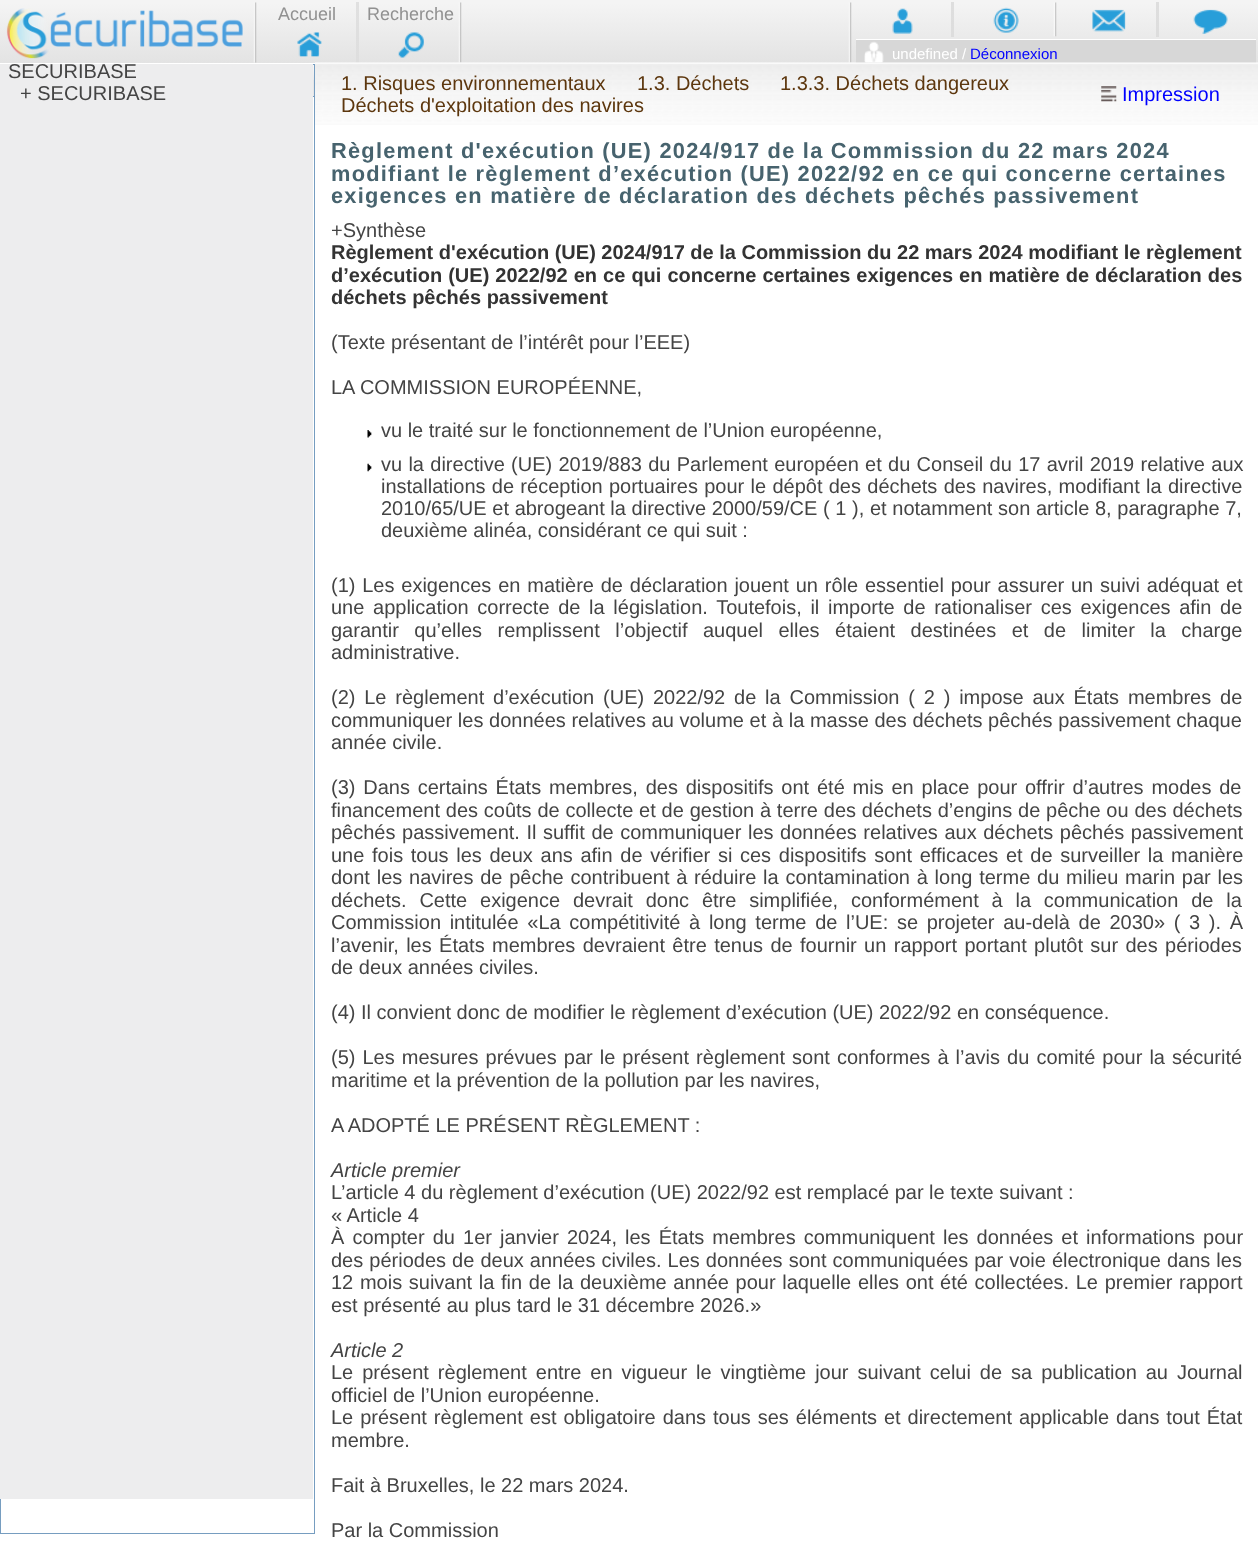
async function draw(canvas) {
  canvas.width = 1258
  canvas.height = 1550
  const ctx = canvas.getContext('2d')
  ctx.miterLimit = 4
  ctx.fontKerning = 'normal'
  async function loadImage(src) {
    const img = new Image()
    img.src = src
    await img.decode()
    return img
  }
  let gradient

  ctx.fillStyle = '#fff'
  ctx.fillRect(0, 0, 1258, 1550)
  gradient = ctx.createLinearGradient(629, 0, 629, 63)
  gradient.addColorStop(0.05, '#f4f4f4')
  gradient.addColorStop(1, '#e3e3e3')
  ctx.fillStyle = gradient
  ctx.fillRect(0, 0, 1258, 63)
  gradient = ctx.createLinearGradient(629, 0, 629, 63)
  gradient.addColorStop(0.05, '#dedede')
  gradient.addColorStop(1, '#dcdcdc')
  ctx.fillStyle = gradient
  ctx.fillRect(1156, 2, 3, 35)
  ctx.fillRect(951, 2, 3, 35)
  gradient = ctx.createLinearGradient(629, 0, 629, 63)
  gradient.addColorStop(0.05, '#e0e0e0')
  gradient.addColorStop(1, '#dedede')
  ctx.fillStyle = gradient
  ctx.fillRect(356, 2, 3, 61)
  ctx.drawImage(await loadImage('image0.png'), 6, 8, 237, 51)
  ctx.drawImage(await loadImage('image1.png'), 253, 2, 4, 61)
  ctx.font = '18px Liberation Sans'
  ctx.fillStyle = '#919191'
  ctx.fillText('Accueil', 278, 20)
  ctx.drawImage(await loadImage('image2.png'), 297, 32, 25, 25)
  ctx.fillText('Recherche', 367, 20)
  ctx.drawImage(await loadImage('image3.png'), 398, 32, 26, 26)
  ctx.drawImage(await loadImage('image4.png'), 458, 2, 4, 61)
  ctx.drawImage(await loadImage('image5.png'), 848, 2, 4, 61)
  ctx.drawImage(await loadImage('image6.png'), 892, 8, 21, 26)
  ctx.drawImage(await loadImage('image7.png'), 993, 7, 26, 26)
  ctx.drawImage(await loadImage('image8.png'), 1053, 2, 4, 35)
  ctx.drawImage(await loadImage('image9.png'), 1092, 9, 34, 23)
  ctx.drawImage(await loadImage('image10.png'), 1193, 9, 35, 25)
  ctx.fillStyle = '#d7d7d7'
  ctx.fillRect(856, 40, 400, 23)
  ctx.fillStyle = '#fff'
  ctx.fillRect(856, 39, 400, 1)
  ctx.drawImage(await loadImage('image11.png'), 864, 41, 20, 22)
  ctx.font = '15px Liberation Sans'
  ctx.fillText('undefined /', 892, 59)
  ctx.fillStyle = '#00f'
  ctx.fillText('Déconnexion', 970, 59)
  ctx.strokeStyle = '#769dc0'
  ctx.strokeRect(0.5, 96.5, 314, 1437)
  ctx.fillStyle = '#ededee'
  ctx.fillRect(0, 64, 313, 1435)
  ctx.font = '20px Liberation Sans'
  ctx.fillStyle = '#444'
  ctx.fillText('SECURIBASE', 8, 78)
  ctx.fillText('+ SECURIBASE', 20, 100)
  ctx.fillStyle = '#e6e6e7'
  ctx.fillRect(313, 65, 1, 31)
  ctx.drawImage(await loadImage('image12.png'), 313, 65, 1, 15)
  ctx.fillStyle = '#769dc0'
  ctx.fillRect(313, 64, 2, 1)
  ctx.fillRect(314, 64, 1, 32)
  ctx.drawImage(await loadImage('image13.png'), 315, 62, 943, 63)
  ctx.fillStyle = '#5d370e'
  ctx.fillText('1. Risques environnementaux', 341, 90)
  ctx.fillText('1.3. Déchets', 637, 90)
  ctx.fillText('1.3.3. Déchets dangereux', 780, 90)
  ctx.fillText('Déchets d\'exploitation des navires', 341, 112)
  ctx.drawImage(await loadImage('image14.png'), 1101, 86, 16, 16)
  ctx.fillStyle = '#00f'
  ctx.fillText('Impression', 1122, 101)
  ctx.letterSpacing = '1.25px'
  ctx.font = 'bold 21.8px Liberation Sans'
  ctx.fillStyle = '#47636e'
  ctx.fillText('Règlement d\'exécution (UE) 2024/917 de la Commission du 22 mars 2024', 331, 158)
  ctx.fillText('modifiant le règlement d’exécution (UE) 2022/92 en ce qui concerne certaines', 331, 181)
  ctx.fillText('exigences en matière de déclaration des déchets pêchés passivement', 331, 203)
  ctx.letterSpacing = '0px'
  ctx.font = '20px Liberation Sans'
  ctx.fillStyle = '#444'
  ctx.fillText('+Synthèse', 331, 237)
  ctx.font = 'bold 20px Liberation Sans'
  ctx.fillStyle = '#333'
  ctx.fillText('Règlement d\'exécution (UE) 2024/917 de la Commission du 22 mars 2024 modifiant le règlement', 331, 259)
  ctx.wordSpacing = '0.5px'
  ctx.fillText('d’exécution (UE) 2022/92 en ce qui concerne certaines exigences en matière de déclaration des', 331, 282)
  ctx.wordSpacing = '0px'
  ctx.fillText('déchets pêchés passivement', 331, 304)
  ctx.font = '20px Liberation Sans'
  ctx.fillStyle = '#444'
  ctx.fillText('(Texte présentant de l’intérêt pour l’EEE)', 331, 349)
  ctx.fillText('LA COMMISSION EUROPÉENNE,', 331, 394)
  ctx.drawImage(await loadImage('image15.png'), 367, 430, 5, 8)
  ctx.fillText('vu le traité sur le fonctionnement de l’Union européenne,', 381, 437)
  ctx.drawImage(await loadImage('image16.png'), 367, 463, 5, 9)
  ctx.wordSpacing = '0.75px'
  ctx.fillText('vu la directive (UE) 2019/883 du Parlement européen et du Conseil du 17 avril 2019 relative aux', 381, 471)
  ctx.fillText('installations de réception portuaires pour le dépôt des déchets des navires, modifiant la directive', 381, 493)
  ctx.wordSpacing = '0.1px'
  ctx.fillText('2010/65/UE et abrogeant la directive 2000/59/CE ( 1 ), et notamment son article 8, paragraphe 7,', 381, 515)
  ctx.wordSpacing = '0px'
  ctx.fillText('deuxième alinéa, considérant ce qui suit :', 381, 537)
  ctx.wordSpacing = '1.25px'
  ctx.fillText('(1) Les exigences en matière de déclaration jouent un rôle essentiel pour assurer un suivi adéquat et', 331, 592)
  ctx.wordSpacing = '3.1px'
  ctx.fillText('une application correcte de la législation. Toutefois, il importe de rationaliser ces exigences afin de', 331, 614)
  ctx.wordSpacing = '9.9px'
  ctx.fillText('garantir qu’elles remplissent l’objectif auquel elles étaient destinées et de limiter la charge', 331, 637)
  ctx.wordSpacing = '0px'
  ctx.fillText('administrative.', 331, 659)
  ctx.wordSpacing = '3.25px'
  ctx.fillText('(2) Le règlement d’exécution (UE) 2022/92 de la Commission ( 2 ) impose aux États membres de', 331, 704)
  ctx.wordSpacing = '0.1px'
  ctx.fillText('communiquer les données relatives au volume et à la masse des déchets pêchés passivement chaque', 331, 727)
  ctx.wordSpacing = '0px'
  ctx.fillText('année civile.', 331, 749)
  ctx.wordSpacing = '2.25px'
  ctx.fillText('(3) Dans certains États membres, des dispositifs ont été mis en place pour offrir d’autres modes de', 331, 794)
  ctx.wordSpacing = '0.25px'
  ctx.fillText('financement des coûts de collecte et de gestion à terre des déchets d’engins de pêche ou des déchets', 331, 817)
  ctx.wordSpacing = '1px'
  ctx.fillText('pêchés passivement. Il suffit de communiquer les données relatives aux déchets pêchés passivement', 331, 839)
  ctx.wordSpacing = '2.1px'
  ctx.fillText('une fois tous les deux ans afin de vérifier si ces dispositifs sont efficaces et de surveiller la manière', 331, 862)
  ctx.wordSpacing = '1.2px'
  ctx.fillText('dont les navires de pêche contribuent à réduire la contamination à long terme du milieu marin par les', 331, 884)
  ctx.wordSpacing = '7.25px'
  ctx.fillText('déchets. Cette exigence devrait donc être simplifiée, conformément à la communication de la', 331, 907)
  ctx.wordSpacing = '3.1px'
  ctx.fillText('Commission intitulée «La compétitivité à long terme de l’UE: se projeter au-delà de 2030» ( 3 ). À', 331, 929)
  ctx.wordSpacing = '1.8px'
  ctx.fillText('l’avenir, les États membres devraient être tenus de fournir un rapport portant plutôt sur des périodes', 331, 952)
  ctx.wordSpacing = '0px'
  ctx.fillText('de deux années civiles.', 331, 974)
  ctx.fillText('(4) Il convient donc de modifier le règlement d’exécution (UE) 2022/92 en conséquence.', 331, 1019)
  ctx.wordSpacing = '1.5px'
  ctx.fillText('(5) Les mesures prévues par le présent règlement sont conformes à l’avis du comité pour la sécurité', 331, 1064)
  ctx.wordSpacing = '0px'
  ctx.fillText('maritime et la prévention de la pollution par les navires,', 331, 1087)
  ctx.fillText('A ADOPTÉ LE PRÉSENT RÈGLEMENT :', 331, 1132)
  ctx.font = 'italic 20px Liberation Sans'
  ctx.fillText('Article premier', 331, 1177)
  ctx.font = '20px Liberation Sans'
  ctx.fillText('L’article 4 du règlement d’exécution (UE) 2022/92 est remplacé par le texte suivant :', 331, 1199)
  ctx.fillText('« Article 4', 331, 1222)
  ctx.wordSpacing = '2.5px'
  ctx.fillText('À compter du 1er janvier 2024, les États membres communiquent les données et informations pour', 331, 1244)
  ctx.wordSpacing = '0.5px'
  ctx.fillText('des périodes de deux années civiles. Les données sont communiquées par voie électronique dans les', 331, 1267)
  ctx.wordSpacing = '1.1px'
  ctx.fillText('12 mois suivant la fin de la deuxième année pour laquelle elles ont été collectées. Le premier rapport', 331, 1289)
  ctx.wordSpacing = '0px'
  ctx.fillText('est présenté au plus tard le 31 décembre 2026.»', 331, 1312)
  ctx.font = 'italic 20px Liberation Sans'
  ctx.fillText('Article 2', 331, 1357)
  ctx.wordSpacing = '3.4px'
  ctx.font = '20px Liberation Sans'
  ctx.fillText('Le présent règlement entre en vigueur le vingtième jour suivant celui de sa publication au Journal', 331, 1379)
  ctx.wordSpacing = '0px'
  ctx.fillText('officiel de l’Union européenne.', 331, 1402)
  ctx.wordSpacing = '1.4px'
  ctx.fillText('Le présent règlement est obligatoire dans tous ses éléments et directement applicable dans tout État', 331, 1424)
  ctx.wordSpacing = '0px'
  ctx.fillText('membre.', 331, 1447)
  ctx.fillText('Fait à Bruxelles, le 22 mars 2024.', 331, 1492)
  ctx.fillText('Par la Commission', 331, 1537)
}

draw(document.querySelector('canvas'))
